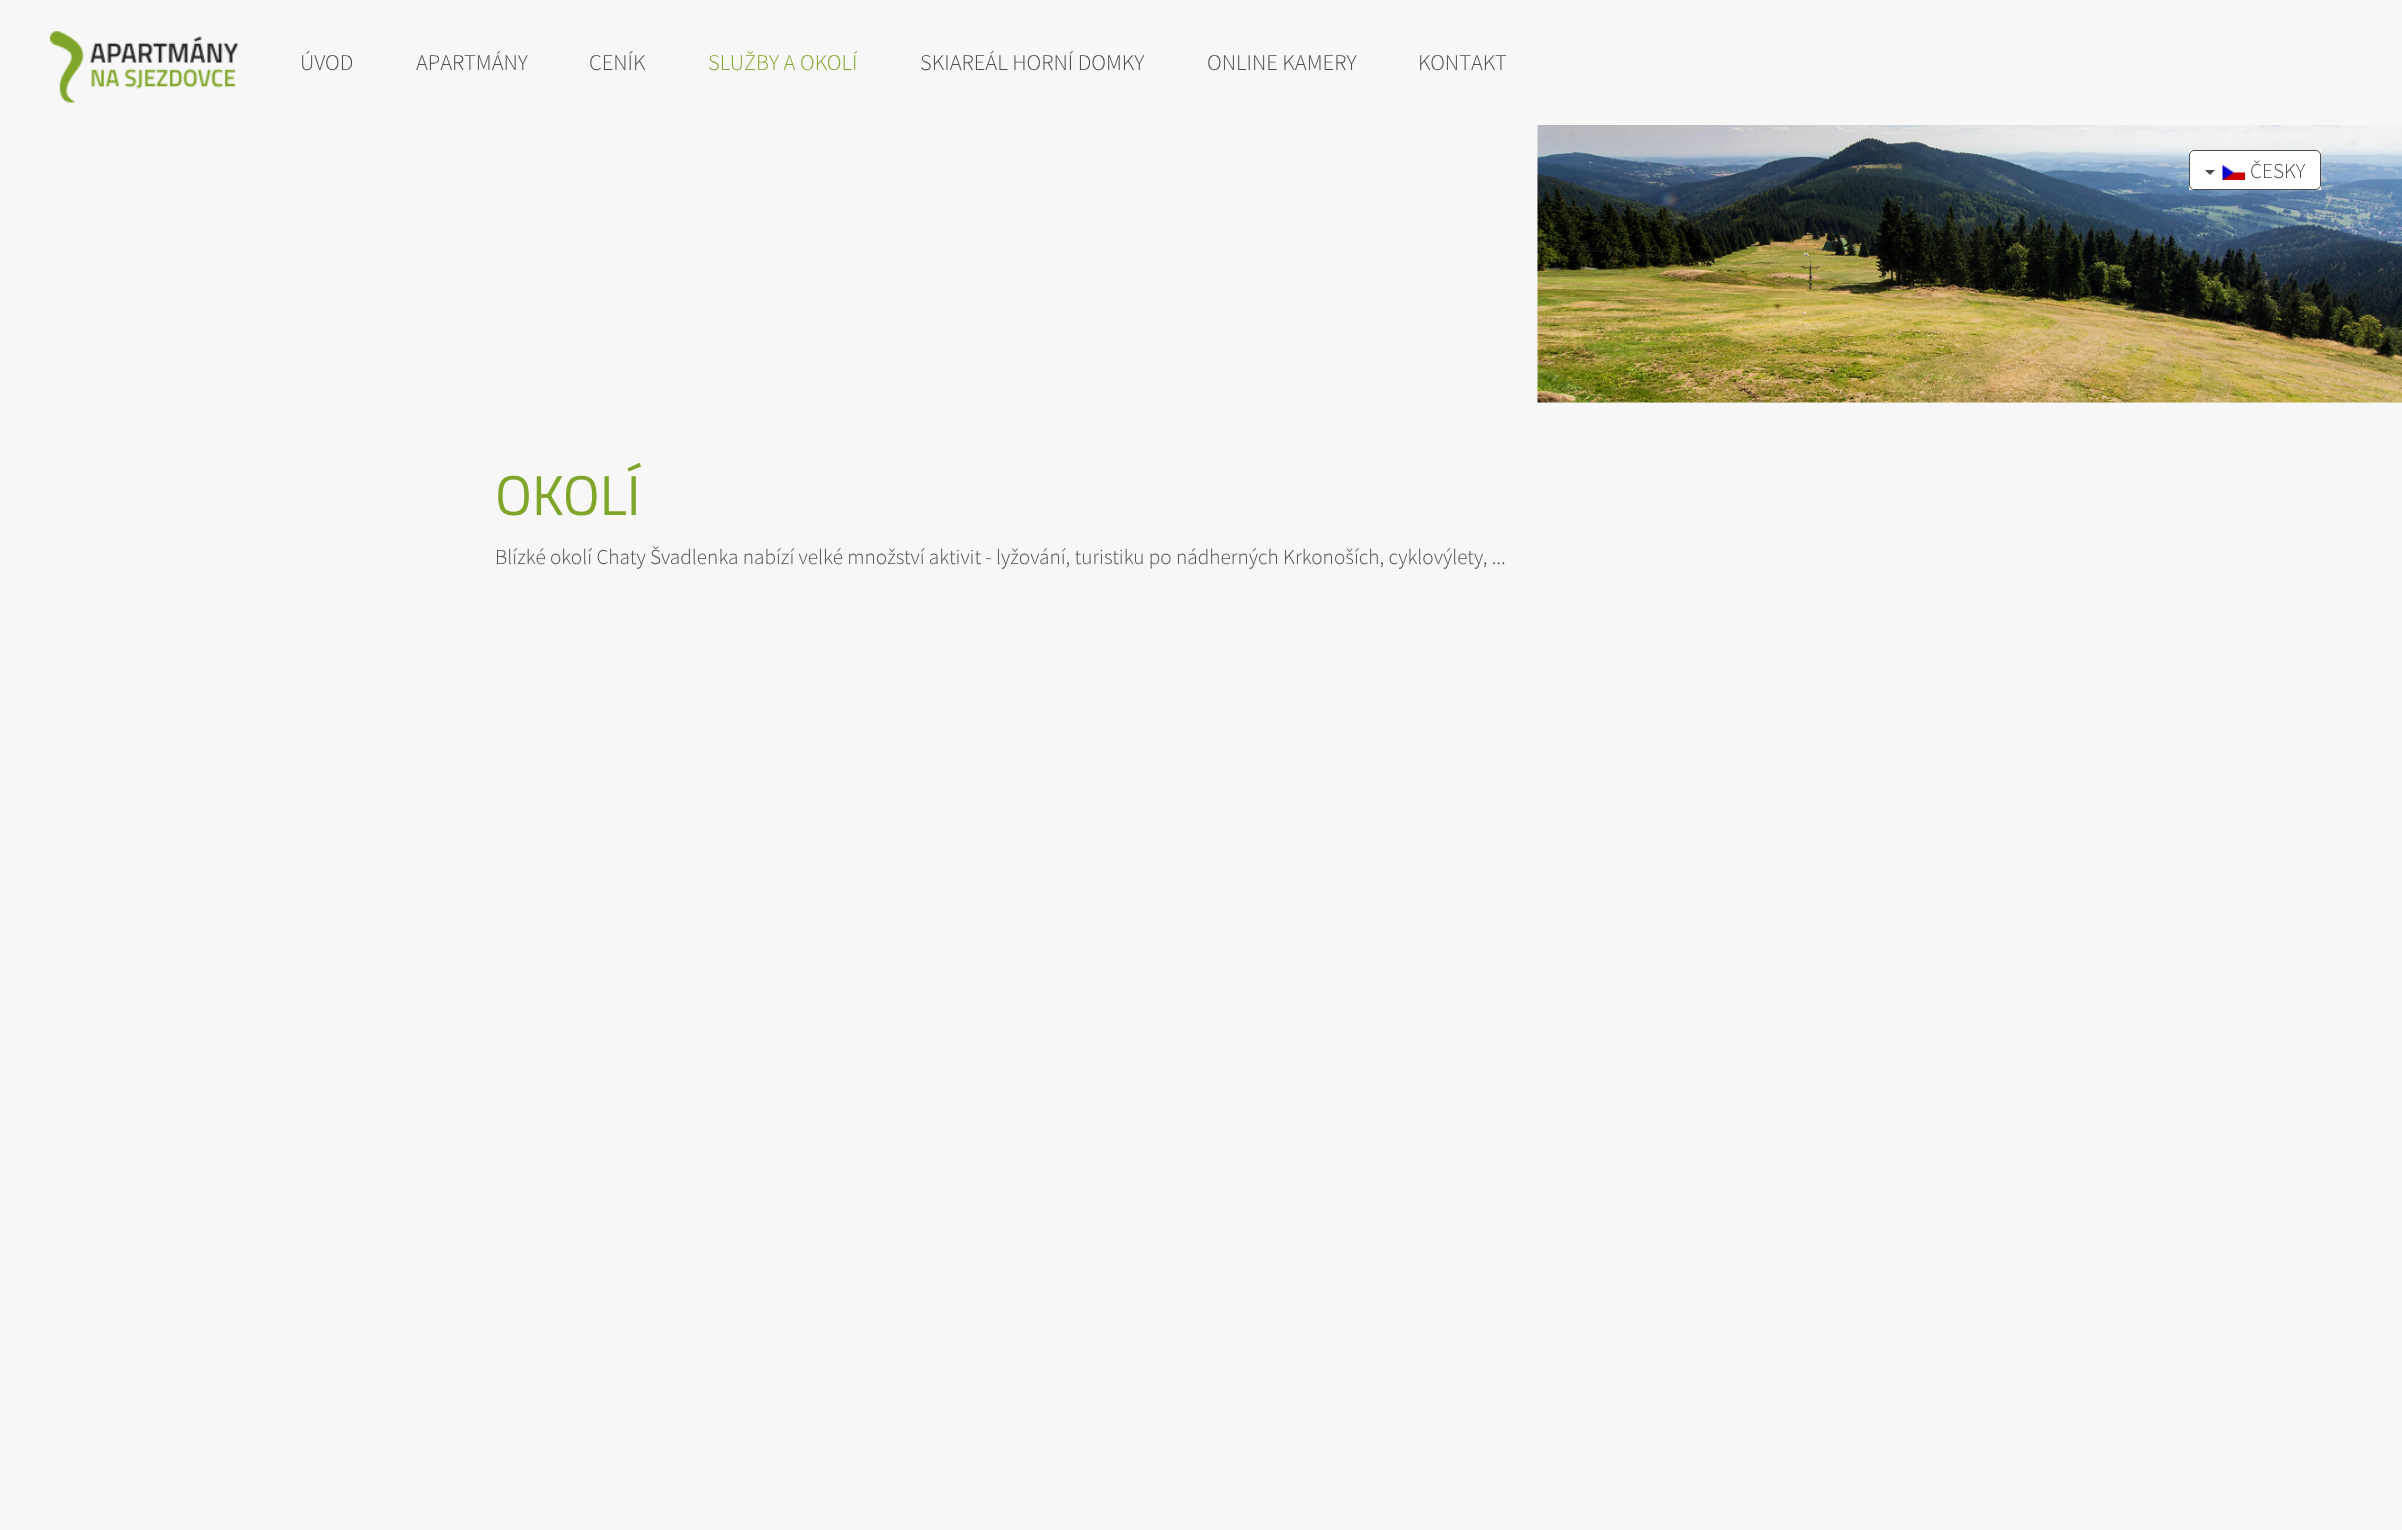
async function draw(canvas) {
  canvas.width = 2402
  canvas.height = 1530
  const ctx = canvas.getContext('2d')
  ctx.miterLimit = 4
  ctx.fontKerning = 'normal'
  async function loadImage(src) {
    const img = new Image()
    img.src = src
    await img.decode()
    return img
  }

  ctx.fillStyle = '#f6f7f6'
  ctx.fillRect(0, 0, 2402, 1530)
  ctx.drawImage(await loadImage('image0.png'), 50, 31, 188, 72)
  ctx.font = '300 22.5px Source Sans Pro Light'
  ctx.fillStyle = '#4b4b4b'
  ctx.fillText('ÚVOD', 300, 70)
  ctx.fillText('APARTMÁNY', 416, 70)
  ctx.fillText('CENÍK', 589, 70)
  ctx.fillStyle = '#7fa62a'
  ctx.fillText('SLUŽBY A OKOLÍ', 708, 70)
  ctx.fillStyle = '#4b4b4b'
  ctx.fillText('SKIAREÁL HORNÍ DOMKY', 920, 70)
  ctx.fillText('ONLINE KAMERY', 1207, 70)
  ctx.fillText('KONTAKT', 1418, 70)
  ctx.drawImage(await loadImage('image2.png'), 1537, 125, 865, 278)
  ctx.fillStyle = '#fff'
  ctx.fillRect(2189, 150, 132, 40)
  ctx.beginPath()
  ctx.roundRect(2189.5, 150.5, 131, 39, 4.5)
  ctx.strokeStyle = '#4b4b4b'
  ctx.stroke()
  ctx.fillStyle = '#4b4b4b'
  ctx.beginPath()
  ctx.moveTo(2205, 170)
  ctx.lineTo(2215, 170)
  ctx.lineTo(2210, 175)
  ctx.closePath()
  ctx.fill()
  ctx.drawImage(await loadImage('image1.png'), 2222, 165, 23, 15)
  ctx.font = '300 21.25px Source Sans Pro Light'
  ctx.fillText('ČESKY', 2250, 178)
  ctx.font = '56px Titillium Web'
  ctx.fillStyle = '#7fa62a'
  ctx.fillText('OKOLÍ', 495, 515)
  ctx.font = '300 21.25px Source Sans Pro Light'
  ctx.fillStyle = '#4b4b4b'
  ctx.fillText('Blízké okolí Chaty Švadlenka nabízí velké množství aktivit - lyžování, turistiku po nádherných Krkonoších, cyklovýlety, ...', 495, 564)
}

draw(document.querySelector('canvas'))
